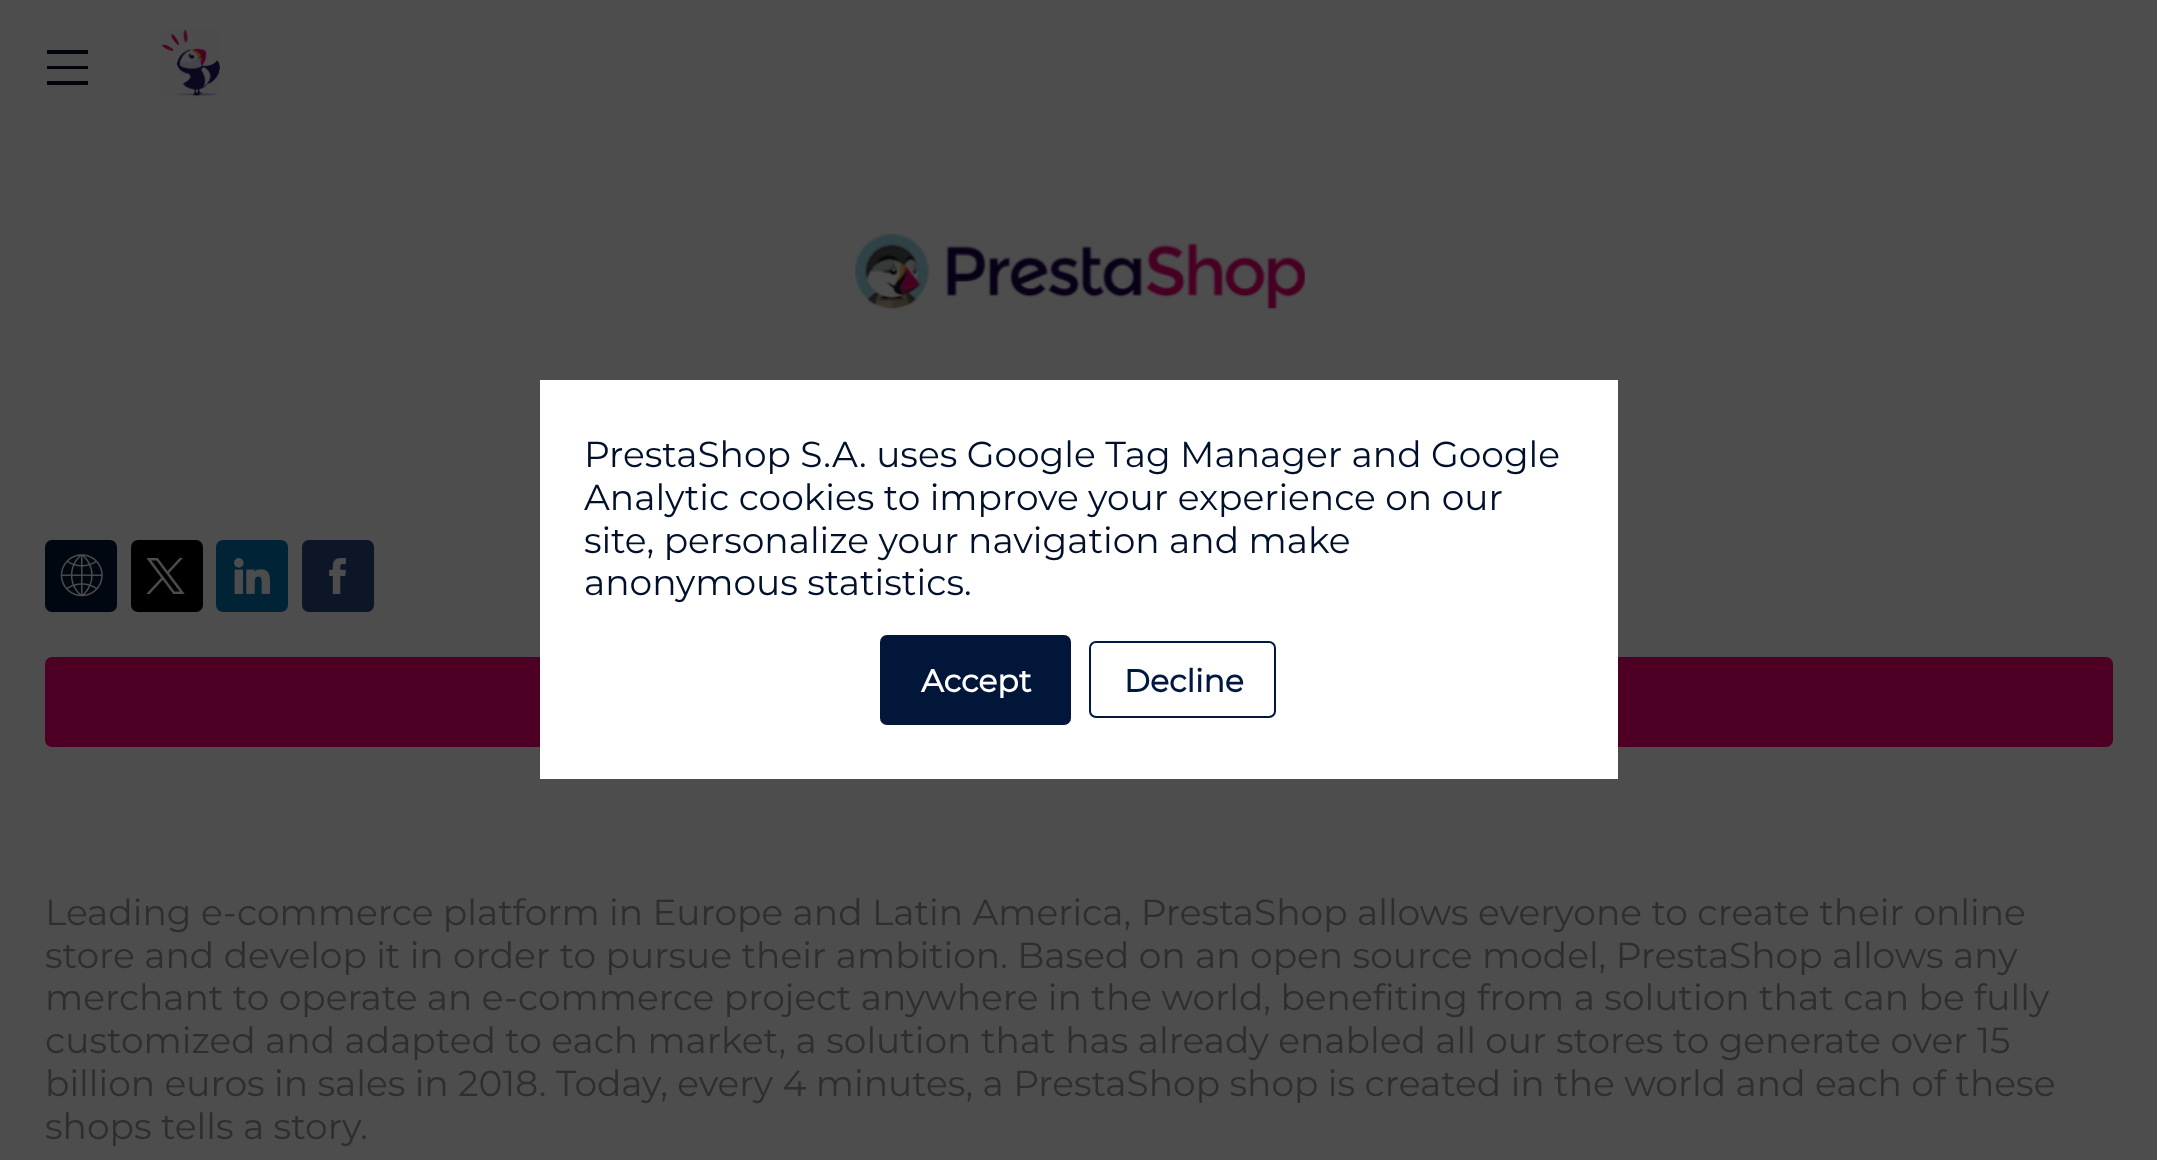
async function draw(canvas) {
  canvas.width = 2157
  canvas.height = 1160
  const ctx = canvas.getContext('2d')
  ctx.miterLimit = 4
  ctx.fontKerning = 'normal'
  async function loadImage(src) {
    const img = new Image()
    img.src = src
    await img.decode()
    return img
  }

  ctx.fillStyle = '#4d4d4d'
  ctx.fillRect(0, 0, 2157, 1160)
  ctx.fillStyle = '#4d0023'
  ctx.beginPath()
  ctx.roundRect(49.5, 661.5, 2059, 81, 2.5)
  ctx.fill()
  ctx.strokeStyle = '#4d0023'
  ctx.lineWidth = 9
  ctx.stroke()
  ctx.fillStyle = '#fff'
  ctx.fillRect(540, 380, 1078, 399)
  ctx.font = '100 36px Montserrat'
  ctx.fillStyle = '#00102a'
  ctx.fillText('PrestaShop S.A. uses Google Tag Manager and Google', 584, 467)
  ctx.fillText('Analytic cookies to improve your experience on our', 584, 510)
  ctx.fillText('site, personalize your navigation and make', 584, 553)
  ctx.fillText('anonymous statistics.', 584, 595)
  ctx.fillStyle = '#011638'
  ctx.beginPath()
  ctx.roundRect(884.5, 639.5, 182, 81, 2.5)
  ctx.fill()
  ctx.strokeStyle = '#011638'
  ctx.stroke()
  ctx.font = 'bold 31.5px Montserrat'
  ctx.fillStyle = '#fff'
  ctx.fillText('Accept', 921, 692)
  ctx.beginPath()
  ctx.roundRect(1090, 642, 185, 75, 6)
  ctx.strokeStyle = '#001740'
  ctx.lineWidth = 2
  ctx.stroke()
  ctx.fillStyle = '#001740'
  ctx.fillText('Decline', 1124, 692)
  ctx.fillStyle = '#00050d'
  ctx.beginPath()
  ctx.moveTo(47, 50)
  ctx.lineTo(88, 50)
  ctx.lineTo(88, 54)
  ctx.lineTo(47, 54)
  ctx.closePath()
  ctx.moveTo(47, 66)
  ctx.lineTo(88, 66)
  ctx.lineTo(88, 69)
  ctx.lineTo(47, 69)
  ctx.closePath()
  ctx.moveTo(47, 81)
  ctx.lineTo(88, 81)
  ctx.lineTo(88, 85)
  ctx.lineTo(47, 85)
  ctx.closePath()
  ctx.fill()
  ctx.drawImage(await loadImage('image0.png'), 161, 29, 59, 68)
  ctx.drawImage(await loadImage('image1.png'), 855, 233, 450, 77)
  ctx.fillStyle = '#000711'
  ctx.beginPath()
  ctx.roundRect(45, 540, 72, 72, 7)
  ctx.fill()
  ctx.drawImage(await loadImage('image2.png'), 60, 554, 43, 43)
  ctx.fillStyle = '#000'
  ctx.beginPath()
  ctx.roundRect(131, 540, 72, 72, 7)
  ctx.fill()
  ctx.drawImage(await loadImage('image3.png'), 146, 558, 39, 36)
  ctx.fillStyle = '#002436'
  ctx.beginPath()
  ctx.roundRect(216, 540, 72, 72, 7)
  ctx.fill()
  ctx.drawImage(await loadImage('image4.png'), 234, 558, 36, 36)
  ctx.fillStyle = '#0c1626'
  ctx.beginPath()
  ctx.roundRect(302, 540, 72, 72, 7)
  ctx.fill()
  ctx.drawImage(await loadImage('image5.png'), 329, 558, 17, 36)
  ctx.font = '100 36px Montserrat'
  ctx.fillStyle = '#2e2e2e'
  ctx.fillText('Leading e-commerce platform in Europe and Latin America, PrestaShop allows everyone to create their online', 45, 925)
  ctx.fillText('store and develop it in order to pursue their ambition. Based on an open source model, PrestaShop allows any', 45, 968)
  ctx.fillText('merchant to operate an e-commerce project anywhere in the world, benefiting from a solution that can be fully', 45, 1010)
  ctx.fillText('customized and adapted to each market, a solution that has already enabled all our stores to generate over 15', 45, 1053)
  ctx.fillText('billion euros in sales in 2018. Today, every 4 minutes, a PrestaShop shop is created in the world and each of these', 45, 1096)
  ctx.fillText('shops tells a story.', 45, 1139)
}

draw(document.querySelector('canvas'))
